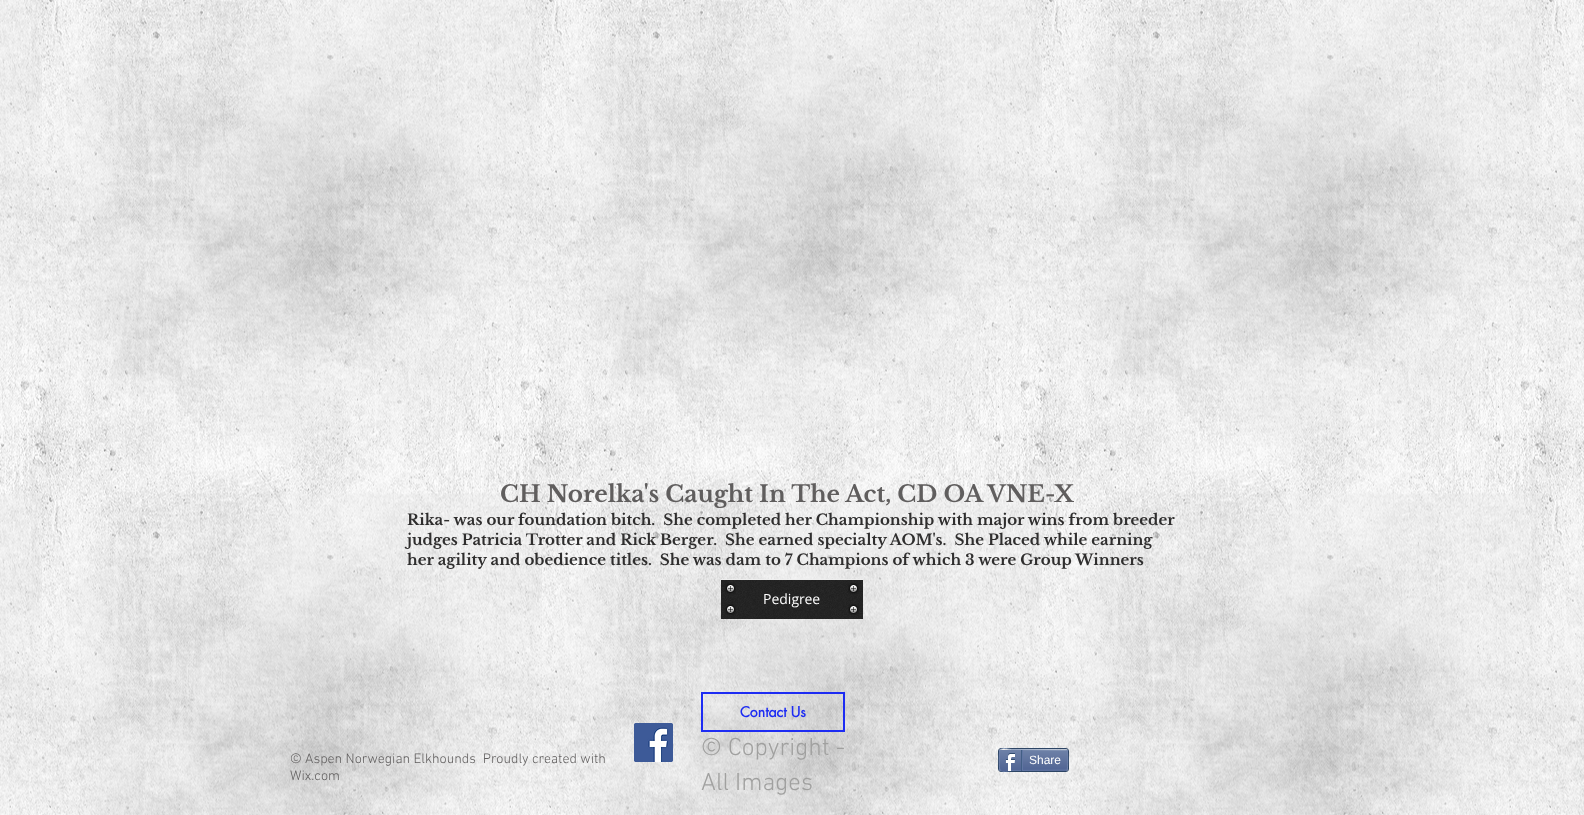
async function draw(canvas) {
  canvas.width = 1584
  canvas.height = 815
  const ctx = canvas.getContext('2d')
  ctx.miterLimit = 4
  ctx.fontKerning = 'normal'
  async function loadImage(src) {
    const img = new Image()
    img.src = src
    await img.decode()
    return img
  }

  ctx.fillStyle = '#fff'
  ctx.fillRect(0, 0, 1584, 815)
  ctx.drawImage(await loadImage('image0.png'), 0, 0, 1584, 815)
  ctx.font = 'bold 23px Libre Baskerville'
  ctx.fillStyle = '#605e5e'
  ctx.fillText('CH Norelka\'s Caught In The Act, CD OA VNE-X', 500, 502)
  ctx.font = 'bold 15px Libre Baskerville'
  ctx.fillStyle = '#2f2e2e'
  ctx.fillText('Rika- was our foundation bitch.  She completed her Championship with major wins from breeder', 407, 525)
  ctx.fillText('judges Patricia Trotter and Rick Berger.  She earned specialty AOM\'s.  She Placed while earning', 407, 545)
  ctx.fillText('her agility and obedience titles.  She was dam to 7 Champions of which 3 were Group Winners', 407, 565)
  ctx.fillStyle = '#232323'
  ctx.fillRect(721, 579, 142, 40)
  ctx.drawImage(await loadImage('image1.png'), 721, 579, 142, 40)
  ctx.fillStyle = '#ffffffeb'
  ctx.fillRect(721, 579, 142, 1)
  ctx.drawImage(await loadImage('image2.png'), 725, 583, 11, 11)
  ctx.drawImage(await loadImage('image3.png'), 848, 583, 11, 11)
  ctx.font = '14px Open Sans'
  ctx.fillStyle = '#fff'
  ctx.fillText('Pedigree', 763, 604)
  ctx.drawImage(await loadImage('image4.png'), 725, 604, 11, 11)
  ctx.drawImage(await loadImage('image5.png'), 848, 604, 11, 11)
  ctx.strokeStyle = '#1d2cf3'
  ctx.lineWidth = 2
  ctx.strokeRect(702, 693, 142, 38)
  ctx.font = 'bold 14px futura'
  ctx.fillStyle = '#1d2cf3'
  ctx.fillText('Contact Us', 740, 717)
  ctx.font = '300 14px "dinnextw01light"'
  ctx.fillStyle = '#605e5e'
  ctx.fillText('© Aspen Norwegian Elkhounds  Proudly created with', 290, 763)
  ctx.fillText('Wix.com', 290, 780)
  ctx.drawImage(await loadImage('image6.png'), 634, 723, 39, 39)
  ctx.font = '300 25px "dinnextw01light"'
  ctx.fillStyle = '#a0a09f'
  ctx.fillText('© Copyright -', 701, 755)
  ctx.fillText('All Images', 701, 790)
  ctx.beginPath()
  ctx.roundRect(998.5, 748.5, 70, 23, 2.5)
  ctx.strokeStyle = '#2d4565'
  ctx.lineWidth = 1
  ctx.stroke()
  ctx.drawImage(await loadImage('image7.png'), 999, 750, 69, 21)
  ctx.beginPath()
  ctx.moveTo(1000, 750)
  ctx.bezierCurveTo(1003, 747, 1008, 749.5, 1012, 749.5)
  ctx.lineTo(1067, 750)
  ctx.strokeStyle = '#9aabc6'
  ctx.stroke()
  ctx.beginPath()
  ctx.moveTo(1067, 750)
  ctx.bezierCurveTo(1068, 750.5, 1068, 769.5, 1067, 770)
  ctx.strokeStyle = '#6f83ad'
  ctx.stroke()
  ctx.beginPath()
  ctx.moveTo(1067, 770)
  ctx.lineTo(1012, 770.5)
  ctx.bezierCurveTo(1008, 770.5, 1003, 773, 1000, 770)
  ctx.strokeStyle = '#6176a3'
  ctx.stroke()
  ctx.beginPath()
  ctx.moveTo(1000, 770)
  ctx.bezierCurveTo(999, 769.5, 999, 750.5, 1000, 750)
  ctx.strokeStyle = '#6f83ad'
  ctx.stroke()
  ctx.drawImage(await loadImage('image8.png'), 1005, 753, 10, 18)
  ctx.fillStyle = '#425e85'
  ctx.fillRect(1021, 750, 1, 21)
  ctx.font = '12px Liberation Sans'
  ctx.fillStyle = '#fff'
  ctx.fillText('Share', 1029, 764)
  ctx.fillStyle = '#6176a3'
  ctx.fillRect(1022, 750, 1, 20)
}

draw(document.querySelector('canvas'))
